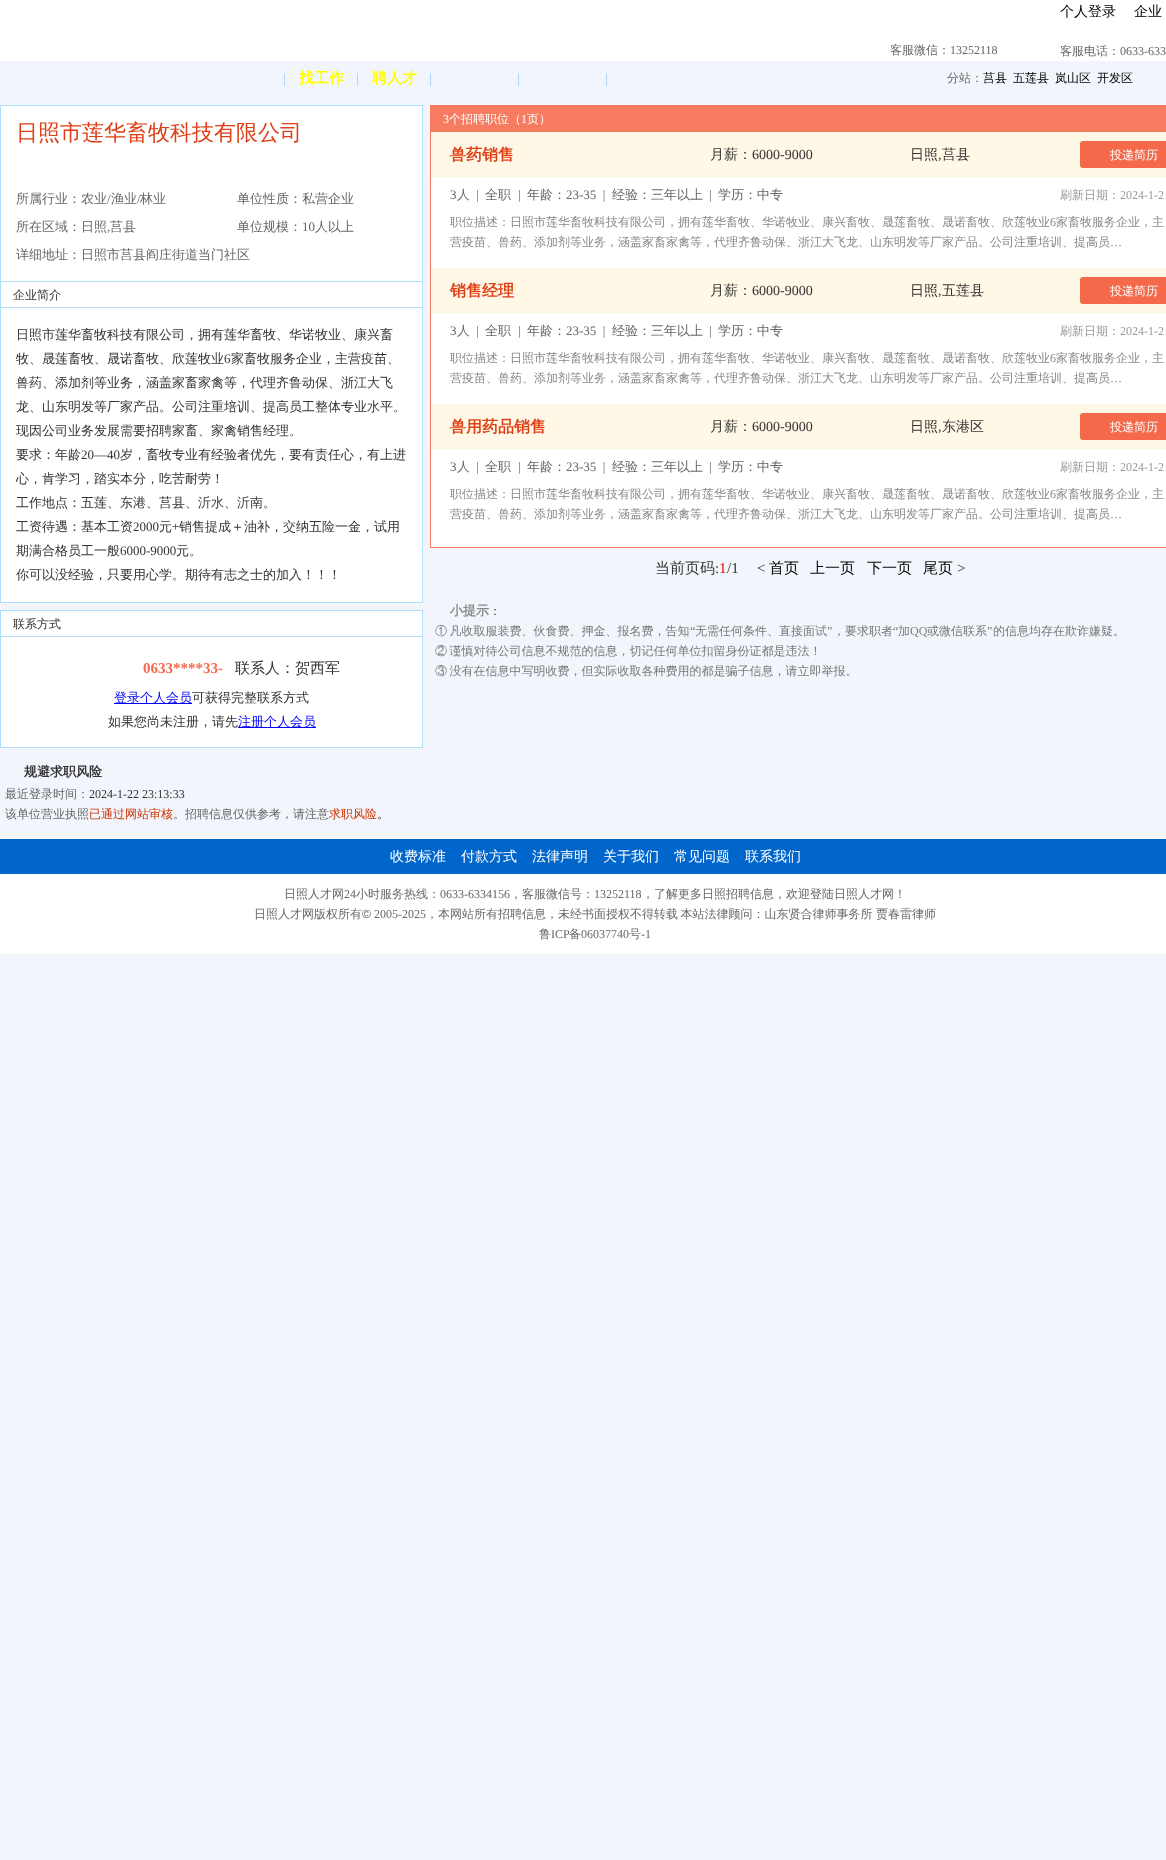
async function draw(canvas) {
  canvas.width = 1166
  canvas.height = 1860
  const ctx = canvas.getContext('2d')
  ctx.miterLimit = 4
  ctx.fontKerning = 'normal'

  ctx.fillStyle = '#f2f6fc'
  ctx.fillRect(0, 0, 1166, 1860)
  ctx.fillStyle = '#fff'
  ctx.fillRect(0, 0, 1166, 61)
  ctx.font = '500 14px WenQuanYi Zen Hei'
  ctx.fillStyle = '#000'
  ctx.fillText('个人登录', 1060, 16)
  ctx.fillText('企业', 1134, 16)
  ctx.font = '500 12px WenQuanYi Zen Hei'
  ctx.fillStyle = '#666'
  ctx.fillText('客服微信：', 890, 54)
  ctx.font = '12px Liberation Serif'
  ctx.fillText('13252118', 950, 54)
  ctx.font = '500 12px WenQuanYi Zen Hei'
  ctx.fillText('客服电话：', 1060, 55)
  ctx.font = '12px Liberation Serif'
  ctx.fillText('0633-633', 1120, 55)
  ctx.font = '14px Liberation Serif'
  ctx.fillStyle = '#9cf'
  ctx.fillText('|', 283, 83)
  ctx.font = 'bold 15px WenQuanYi Zen Hei'
  ctx.fillStyle = '#ff0'
  ctx.fillText('找工作', 299, 83)
  ctx.font = '14px Liberation Serif'
  ctx.fillStyle = '#9cf'
  ctx.fillText('|', 356, 83)
  ctx.font = 'bold 15px WenQuanYi Zen Hei'
  ctx.fillStyle = '#ff0'
  ctx.fillText('聘人才', 372, 83)
  ctx.font = '14px Liberation Serif'
  ctx.fillStyle = '#9cf'
  ctx.fillText('|', 429, 83)
  ctx.fillText('|', 517, 83)
  ctx.fillText('|', 605, 83)
  ctx.font = '500 12px WenQuanYi Zen Hei'
  ctx.fillStyle = '#666'
  ctx.fillText('分站：', 947, 82)
  ctx.fillStyle = '#000'
  ctx.fillText('莒县', 983, 82)
  ctx.fillText('五莲县', 1013, 82)
  ctx.fillText('岚山区', 1055, 82)
  ctx.fillText('开发区', 1097, 82)
  ctx.fillStyle = '#fff'
  ctx.fillRect(1, 106, 421, 496)
  ctx.fillStyle = '#aedefb'
  ctx.fillRect(0, 105, 423, 1)
  ctx.fillRect(422, 105, 1, 498)
  ctx.fillRect(0, 602, 423, 1)
  ctx.fillRect(0, 105, 1, 498)
  ctx.font = '500 22px WenQuanYi Zen Hei'
  ctx.fillStyle = '#df4017'
  ctx.fillText('日照市莲华畜牧科技有限公司', 16, 140)
  ctx.font = '500 13px WenQuanYi Zen Hei'
  ctx.fillStyle = '#666'
  ctx.fillText('所属行业：农业', 16, 203)
  ctx.font = '13px Liberation Serif'
  ctx.fillText('/', 107, 203)
  ctx.font = '500 13px WenQuanYi Zen Hei'
  ctx.fillText('渔业', 111, 203)
  ctx.font = '13px Liberation Serif'
  ctx.fillText('/', 137, 203)
  ctx.font = '500 13px WenQuanYi Zen Hei'
  ctx.fillText('林业', 140, 203)
  ctx.fillText('单位性质：私营企业', 237, 203)
  ctx.fillText('所在区域：日照', 16, 231)
  ctx.font = '13px Liberation Serif'
  ctx.fillText(',', 107, 231)
  ctx.font = '500 13px WenQuanYi Zen Hei'
  ctx.fillText('莒县', 110, 231)
  ctx.fillText('单位规模：', 237, 231)
  ctx.font = '13px Liberation Serif'
  ctx.fillText('10', 302, 231)
  ctx.font = '500 13px WenQuanYi Zen Hei'
  ctx.fillText('人以上', 315, 231)
  ctx.fillText('详细地址：日照市莒县阎庄街道当门社区', 16, 259)
  ctx.fillStyle = '#aedefb'
  ctx.fillRect(0, 281, 423, 1)
  ctx.font = '500 12px WenQuanYi Zen Hei'
  ctx.fillStyle = '#333'
  ctx.fillText('企业简介', 13, 299)
  ctx.fillStyle = '#aedefb'
  ctx.fillRect(0, 307, 423, 1)
  ctx.font = '500 13px WenQuanYi Zen Hei'
  ctx.fillStyle = '#333'
  ctx.fillText('日照市莲华畜牧科技有限公司，拥有莲华畜牧、华诺牧业、康兴畜', 16, 339)
  ctx.fillText('牧、晟莲畜牧、晟诺畜牧、欣莲牧业', 16, 363)
  ctx.font = '13px Liberation Serif'
  ctx.fillText('6', 224, 363)
  ctx.font = '500 13px WenQuanYi Zen Hei'
  ctx.fillText('家畜牧服务企业，主营疫苗、', 231, 363)
  ctx.fillText('兽药、添加剂等业务，涵盖家畜家禽等，代理齐鲁动保、浙江大飞', 16, 387)
  ctx.fillText('龙、山东明发等厂家产品。公司注重培训、提高员工整体专业水平。', 16, 411)
  ctx.fillText('现因公司业务发展需要招聘家畜、家禽销售经理。', 16, 435)
  ctx.fillText('要求：年龄', 16, 459)
  ctx.font = '13px Liberation Serif'
  ctx.fillText('20—40', 81, 459)
  ctx.font = '500 13px WenQuanYi Zen Hei'
  ctx.fillText('岁，畜牧专业有经验者优先，要有责任心，有上进', 120, 459)
  ctx.fillText('心，肯学习，踏实本分，吃苦耐劳！', 16, 483)
  ctx.fillText('工作地点：五莲、东港、莒县、沂水、沂南。', 16, 507)
  ctx.fillText('工资待遇：基本工资', 16, 531)
  ctx.font = '13px Liberation Serif'
  ctx.fillText('2000', 133, 531)
  ctx.font = '500 13px WenQuanYi Zen Hei'
  ctx.fillText('元', 159, 531)
  ctx.font = '13px Liberation Serif'
  ctx.fillText('+', 172, 531)
  ctx.font = '500 13px WenQuanYi Zen Hei'
  ctx.fillText('销售提成＋油补，交纳五险一金，试用', 179, 531)
  ctx.fillText('期满合格员工一般', 16, 555)
  ctx.font = '13px Liberation Serif'
  ctx.fillText('6000-9000', 120, 555)
  ctx.font = '500 13px WenQuanYi Zen Hei'
  ctx.fillText('元。', 176, 555)
  ctx.fillText('你可以没经验，只要用心学。期待有志之士的加入！！！', 16, 579)
  ctx.fillStyle = '#fff'
  ctx.fillRect(1, 611, 421, 136)
  ctx.fillStyle = '#aedefb'
  ctx.fillRect(0, 610, 423, 1)
  ctx.fillRect(422, 610, 1, 138)
  ctx.fillRect(0, 747, 423, 1)
  ctx.fillRect(0, 610, 1, 138)
  ctx.font = '500 12px WenQuanYi Zen Hei'
  ctx.fillStyle = '#333'
  ctx.fillText('联系方式', 13, 628)
  ctx.fillStyle = '#aedefb'
  ctx.fillRect(0, 636, 423, 1)
  ctx.font = 'bold 15px Liberation Serif'
  ctx.fillStyle = '#f5694b'
  ctx.fillText('0633****33-', 143, 673)
  ctx.font = '500 15px WenQuanYi Zen Hei'
  ctx.fillStyle = '#333'
  ctx.fillText('联系人：贺西军', 235, 673)
  ctx.fillStyle = '#00f'
  ctx.fillRect(114, 703, 78, 1)
  ctx.font = '500 13px WenQuanYi Zen Hei'
  ctx.fillText('登录个人会员', 114, 702)
  ctx.fillStyle = '#333'
  ctx.fillText('可获得完整联系方式', 192, 702)
  ctx.fillText('如果您尚未注册，请先', 108, 726)
  ctx.fillStyle = '#00f'
  ctx.fillRect(238, 727, 78, 1)
  ctx.fillText('注册个人会员', 238, 726)
  ctx.font = 'bold 13px WenQuanYi Zen Hei'
  ctx.fillStyle = '#333'
  ctx.fillText('规避求职风险', 24, 776)
  ctx.font = '500 12px WenQuanYi Zen Hei'
  ctx.fillStyle = '#666'
  ctx.fillText('最近登录时间：', 5, 798)
  ctx.font = '12px Liberation Serif'
  ctx.fillStyle = '#333'
  ctx.fillText('2024-1-22 23:13:33', 89, 798)
  ctx.font = '500 12px WenQuanYi Zen Hei'
  ctx.fillStyle = '#666'
  ctx.fillText('该单位营业执照', 5, 818)
  ctx.fillStyle = '#c30'
  ctx.fillText('已通过网站审核', 89, 818)
  ctx.fillStyle = '#666'
  ctx.fillText('。招聘信息仅供参考，请注意', 173, 818)
  ctx.fillStyle = '#c30'
  ctx.fillText('求职风险', 329, 818)
  ctx.fillStyle = '#333'
  ctx.fillText('。', 377, 818)
  ctx.fillStyle = '#fff'
  ctx.fillRect(431, 177, 735, 370)
  ctx.strokeStyle = '#f67b61'
  ctx.strokeRect(430.5, 105.5, 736, 442)
  ctx.fillStyle = '#f67b61'
  ctx.fillRect(431, 106, 735, 26)
  ctx.font = '12px Liberation Serif'
  ctx.fillStyle = '#fff'
  ctx.fillText('3', 443, 123)
  ctx.font = '500 12px WenQuanYi Zen Hei'
  ctx.fillText('个招聘职位（', 449, 123)
  ctx.font = '12px Liberation Serif'
  ctx.fillText('1', 521, 123)
  ctx.font = '500 12px WenQuanYi Zen Hei'
  ctx.fillText('页）', 527, 123)
  ctx.fillStyle = '#fff8e6'
  ctx.fillRect(431, 132, 735, 45)
  ctx.font = 'bold 16px WenQuanYi Zen Hei'
  ctx.fillStyle = '#df4017'
  ctx.fillText('兽药销售', 450, 160)
  ctx.font = '500 14px WenQuanYi Zen Hei'
  ctx.fillStyle = '#333'
  ctx.fillText('月薪：', 710, 159)
  ctx.font = '14px Liberation Serif'
  ctx.fillText('6000-9000', 752, 159)
  ctx.font = '500 14px WenQuanYi Zen Hei'
  ctx.fillText('日照', 910, 159)
  ctx.font = '14px Liberation Serif'
  ctx.fillText(',', 938, 159)
  ctx.font = '500 14px WenQuanYi Zen Hei'
  ctx.fillText('莒县', 942, 159)
  ctx.fillStyle = '#f5694b'
  ctx.beginPath()
  ctx.roundRect(1080, 141, 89, 27, 3)
  ctx.fill()
  ctx.font = '500 12px WenQuanYi Zen Hei'
  ctx.fillStyle = '#fff'
  ctx.fillText('投递简历', 1110, 159)
  ctx.font = '13px Liberation Serif'
  ctx.fillStyle = '#666'
  ctx.fillText('3', 450, 199)
  ctx.font = '500 13px WenQuanYi Zen Hei'
  ctx.fillText('人', 457, 199)
  ctx.font = '13px Liberation Serif'
  ctx.fillText('|', 476, 199)
  ctx.font = '500 13px WenQuanYi Zen Hei'
  ctx.fillText('全职', 485, 199)
  ctx.font = '13px Liberation Serif'
  ctx.fillText('|', 518, 199)
  ctx.font = '500 13px WenQuanYi Zen Hei'
  ctx.fillText('年龄：', 527, 199)
  ctx.font = '13px Liberation Serif'
  ctx.fillText('23-35  |', 566, 199)
  ctx.font = '500 13px WenQuanYi Zen Hei'
  ctx.fillText('经验：三年以上', 612, 199)
  ctx.font = '13px Liberation Serif'
  ctx.fillText('|', 709, 199)
  ctx.font = '500 13px WenQuanYi Zen Hei'
  ctx.fillText('学历：中专', 718, 199)
  ctx.font = '500 12px WenQuanYi Zen Hei'
  ctx.fillStyle = '#999'
  ctx.fillText('刷新日期：', 1060, 199)
  ctx.font = '12px Liberation Serif'
  ctx.fillText('2024-1-2', 1120, 199)
  ctx.font = '500 12px WenQuanYi Zen Hei'
  ctx.fillStyle = '#888'
  ctx.fillText('职位描述：日照市莲华畜牧科技有限公司，拥有莲华畜牧、华诺牧业、康兴畜牧、晟莲畜牧、晟诺畜牧、欣莲牧业', 450, 226)
  ctx.font = '12px Liberation Serif'
  ctx.fillText('6', 1050, 226)
  ctx.font = '500 12px WenQuanYi Zen Hei'
  ctx.fillText('家畜牧服务企业，主', 1056, 226)
  ctx.fillText('营疫苗、兽药、添加剂等业务，涵盖家畜家禽等，代理齐鲁动保、浙江大飞龙、山东明发等厂家产品。公司注重培训、提高员', 450, 246)
  ctx.font = '12px Liberation Serif'
  ctx.fillText('…', 1110, 246)
  ctx.fillStyle = '#fff8e6'
  ctx.fillRect(431, 268, 735, 45)
  ctx.font = 'bold 16px WenQuanYi Zen Hei'
  ctx.fillStyle = '#df4017'
  ctx.fillText('销售经理', 450, 296)
  ctx.font = '500 14px WenQuanYi Zen Hei'
  ctx.fillStyle = '#333'
  ctx.fillText('月薪：', 710, 295)
  ctx.font = '14px Liberation Serif'
  ctx.fillText('6000-9000', 752, 295)
  ctx.font = '500 14px WenQuanYi Zen Hei'
  ctx.fillText('日照', 910, 295)
  ctx.font = '14px Liberation Serif'
  ctx.fillText(',', 938, 295)
  ctx.font = '500 14px WenQuanYi Zen Hei'
  ctx.fillText('五莲县', 942, 295)
  ctx.fillStyle = '#f5694b'
  ctx.beginPath()
  ctx.roundRect(1080, 277, 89, 27, 3)
  ctx.fill()
  ctx.font = '500 12px WenQuanYi Zen Hei'
  ctx.fillStyle = '#fff'
  ctx.fillText('投递简历', 1110, 295)
  ctx.font = '13px Liberation Serif'
  ctx.fillStyle = '#666'
  ctx.fillText('3', 450, 335)
  ctx.font = '500 13px WenQuanYi Zen Hei'
  ctx.fillText('人', 457, 335)
  ctx.font = '13px Liberation Serif'
  ctx.fillText('|', 476, 335)
  ctx.font = '500 13px WenQuanYi Zen Hei'
  ctx.fillText('全职', 485, 335)
  ctx.font = '13px Liberation Serif'
  ctx.fillText('|', 518, 335)
  ctx.font = '500 13px WenQuanYi Zen Hei'
  ctx.fillText('年龄：', 527, 335)
  ctx.font = '13px Liberation Serif'
  ctx.fillText('23-35  |', 566, 335)
  ctx.font = '500 13px WenQuanYi Zen Hei'
  ctx.fillText('经验：三年以上', 612, 335)
  ctx.font = '13px Liberation Serif'
  ctx.fillText('|', 709, 335)
  ctx.font = '500 13px WenQuanYi Zen Hei'
  ctx.fillText('学历：中专', 718, 335)
  ctx.font = '500 12px WenQuanYi Zen Hei'
  ctx.fillStyle = '#999'
  ctx.fillText('刷新日期：', 1060, 335)
  ctx.font = '12px Liberation Serif'
  ctx.fillText('2024-1-2', 1120, 335)
  ctx.font = '500 12px WenQuanYi Zen Hei'
  ctx.fillStyle = '#888'
  ctx.fillText('职位描述：日照市莲华畜牧科技有限公司，拥有莲华畜牧、华诺牧业、康兴畜牧、晟莲畜牧、晟诺畜牧、欣莲牧业', 450, 362)
  ctx.font = '12px Liberation Serif'
  ctx.fillText('6', 1050, 362)
  ctx.font = '500 12px WenQuanYi Zen Hei'
  ctx.fillText('家畜牧服务企业，主', 1056, 362)
  ctx.fillText('营疫苗、兽药、添加剂等业务，涵盖家畜家禽等，代理齐鲁动保、浙江大飞龙、山东明发等厂家产品。公司注重培训、提高员', 450, 382)
  ctx.font = '12px Liberation Serif'
  ctx.fillText('…', 1110, 382)
  ctx.fillStyle = '#fff8e6'
  ctx.fillRect(431, 404, 735, 45)
  ctx.font = 'bold 16px WenQuanYi Zen Hei'
  ctx.fillStyle = '#df4017'
  ctx.fillText('兽用药品销售', 450, 432)
  ctx.font = '500 14px WenQuanYi Zen Hei'
  ctx.fillStyle = '#333'
  ctx.fillText('月薪：', 710, 431)
  ctx.font = '14px Liberation Serif'
  ctx.fillText('6000-9000', 752, 431)
  ctx.font = '500 14px WenQuanYi Zen Hei'
  ctx.fillText('日照', 910, 431)
  ctx.font = '14px Liberation Serif'
  ctx.fillText(',', 938, 431)
  ctx.font = '500 14px WenQuanYi Zen Hei'
  ctx.fillText('东港区', 942, 431)
  ctx.fillStyle = '#f5694b'
  ctx.beginPath()
  ctx.roundRect(1080, 413, 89, 27, 3)
  ctx.fill()
  ctx.font = '500 12px WenQuanYi Zen Hei'
  ctx.fillStyle = '#fff'
  ctx.fillText('投递简历', 1110, 431)
  ctx.font = '13px Liberation Serif'
  ctx.fillStyle = '#666'
  ctx.fillText('3', 450, 471)
  ctx.font = '500 13px WenQuanYi Zen Hei'
  ctx.fillText('人', 457, 471)
  ctx.font = '13px Liberation Serif'
  ctx.fillText('|', 476, 471)
  ctx.font = '500 13px WenQuanYi Zen Hei'
  ctx.fillText('全职', 485, 471)
  ctx.font = '13px Liberation Serif'
  ctx.fillText('|', 518, 471)
  ctx.font = '500 13px WenQuanYi Zen Hei'
  ctx.fillText('年龄：', 527, 471)
  ctx.font = '13px Liberation Serif'
  ctx.fillText('23-35  |', 566, 471)
  ctx.font = '500 13px WenQuanYi Zen Hei'
  ctx.fillText('经验：三年以上', 612, 471)
  ctx.font = '13px Liberation Serif'
  ctx.fillText('|', 709, 471)
  ctx.font = '500 13px WenQuanYi Zen Hei'
  ctx.fillText('学历：中专', 718, 471)
  ctx.font = '500 12px WenQuanYi Zen Hei'
  ctx.fillStyle = '#999'
  ctx.fillText('刷新日期：', 1060, 471)
  ctx.font = '12px Liberation Serif'
  ctx.fillText('2024-1-2', 1120, 471)
  ctx.font = '500 12px WenQuanYi Zen Hei'
  ctx.fillStyle = '#888'
  ctx.fillText('职位描述：日照市莲华畜牧科技有限公司，拥有莲华畜牧、华诺牧业、康兴畜牧、晟莲畜牧、晟诺畜牧、欣莲牧业', 450, 498)
  ctx.font = '12px Liberation Serif'
  ctx.fillText('6', 1050, 498)
  ctx.font = '500 12px WenQuanYi Zen Hei'
  ctx.fillText('家畜牧服务企业，主', 1056, 498)
  ctx.fillText('营疫苗、兽药、添加剂等业务，涵盖家畜家禽等，代理齐鲁动保、浙江大飞龙、山东明发等厂家产品。公司注重培训、提高员', 450, 518)
  ctx.font = '12px Liberation Serif'
  ctx.fillText('…', 1110, 518)
  ctx.font = '500 15px WenQuanYi Zen Hei'
  ctx.fillStyle = '#333'
  ctx.fillText('当前页码', 655, 573)
  ctx.font = '15px Liberation Serif'
  ctx.fillText(':', 715, 573)
  ctx.fillStyle = '#f00'
  ctx.fillText('1', 719, 573)
  ctx.fillStyle = '#333'
  ctx.fillText('/1', 727, 573)
  ctx.fillText('<', 757, 573)
  ctx.font = '500 15px WenQuanYi Zen Hei'
  ctx.fillStyle = '#000'
  ctx.fillText('首页', 769, 573)
  ctx.fillText('上一页', 810, 573)
  ctx.fillText('下一页', 867, 573)
  ctx.fillText('尾页', 923, 573)
  ctx.font = '15px Liberation Serif'
  ctx.fillStyle = '#333'
  ctx.fillText('>', 957, 573)
  ctx.font = 'bold 13px WenQuanYi Zen Hei'
  ctx.fillStyle = '#888'
  ctx.fillText('小提示', 450, 615)
  ctx.font = '500 12px WenQuanYi Zen Hei'
  ctx.fillStyle = '#333'
  ctx.fillText('：', 489, 615)
  ctx.wordSpacing = '-1px'
  ctx.fillStyle = '#777'
  ctx.fillText('① 凡收取服装费、伙食费、押金、报名费，告知', 435, 635)
  ctx.wordSpacing = '0px'
  ctx.font = '12px Liberation Serif'
  ctx.fillText('“', 690, 635)
  ctx.font = '500 12px WenQuanYi Zen Hei'
  ctx.fillText('无需任何条件、直接面试', 695, 635)
  ctx.font = '12px Liberation Serif'
  ctx.fillText('”', 827, 635)
  ctx.font = '500 12px WenQuanYi Zen Hei'
  ctx.fillText('，要求职者', 833, 635)
  ctx.font = '12px Liberation Serif'
  ctx.fillText('“', 893, 635)
  ctx.font = '500 12px WenQuanYi Zen Hei'
  ctx.fillText('加', 898, 635)
  ctx.font = '12px Liberation Serif'
  ctx.fillText('QQ', 910, 635)
  ctx.font = '500 12px WenQuanYi Zen Hei'
  ctx.fillText('或微信联系', 927, 635)
  ctx.font = '12px Liberation Serif'
  ctx.fillText('”', 987, 635)
  ctx.font = '500 12px WenQuanYi Zen Hei'
  ctx.fillText('的信息均存在欺诈嫌疑。', 993, 635)
  ctx.wordSpacing = '-1px'
  ctx.fillText('② 谨慎对待公司信息不规范的信息，切记任何单位扣留身份证都是违法！', 435, 655)
  ctx.fillText('③ 没有在信息中写明收费，但实际收取各种费用的都是骗子信息，请立即举报。', 435, 675)
  ctx.fillStyle = '#06c'
  ctx.fillRect(0, 839, 1166, 35)
  ctx.wordSpacing = '0px'
  ctx.font = '500 14px WenQuanYi Zen Hei'
  ctx.fillStyle = '#fff'
  ctx.fillText('收费标准', 390, 861)
  ctx.fillText('付款方式', 461, 861)
  ctx.fillText('法律声明', 532, 861)
  ctx.fillText('关于我们', 603, 861)
  ctx.fillText('常见问题', 674, 861)
  ctx.fillText('联系我们', 745, 861)
  ctx.fillRect(0, 874, 1166, 80)
  ctx.font = '500 12px WenQuanYi Zen Hei'
  ctx.fillStyle = '#666'
  ctx.fillText('日照人才网', 284, 898)
  ctx.font = '12px Liberation Serif'
  ctx.fillText('24', 344, 898)
  ctx.font = '500 12px WenQuanYi Zen Hei'
  ctx.fillText('小时服务热线：', 356, 898)
  ctx.font = '12px Liberation Serif'
  ctx.fillText('0633-6334156', 440, 898)
  ctx.font = '500 12px WenQuanYi Zen Hei'
  ctx.fillText('，客服微信号：', 510, 898)
  ctx.font = '12px Liberation Serif'
  ctx.fillText('13252118', 594, 898)
  ctx.font = '500 12px WenQuanYi Zen Hei'
  ctx.fillText('，了解更多日照招聘信息，欢迎登陆日照人才网！', 642, 898)
  ctx.fillText('日照人才网版权所有', 254, 918)
  ctx.font = '12px Liberation Sans'
  ctx.fillText('©', 362, 918)
  ctx.font = '12px Liberation Serif'
  ctx.fillText('2005-2025', 374, 918)
  ctx.wordSpacing = '-1px'
  ctx.font = '500 12px WenQuanYi Zen Hei'
  ctx.fillText('，本网站所有招聘信息，未经书面授权不得转载 本站法律顾问：山东贤合律师事务所', 426, 918)
  ctx.wordSpacing = '0px'
  ctx.fillText('贾春雷律师', 876, 918)
  ctx.fillText('鲁', 539, 938)
  ctx.font = '12px Liberation Serif'
  ctx.fillText('ICP', 551, 938)
  ctx.font = '500 12px WenQuanYi Zen Hei'
  ctx.fillText('备', 569, 938)
  ctx.font = '12px Liberation Serif'
  ctx.fillText('06037740', 581, 938)
  ctx.font = '500 12px WenQuanYi Zen Hei'
  ctx.fillText('号', 629, 938)
  ctx.font = '12px Liberation Serif'
  ctx.fillText('-1', 641, 938)
}

draw(document.querySelector('canvas'))
